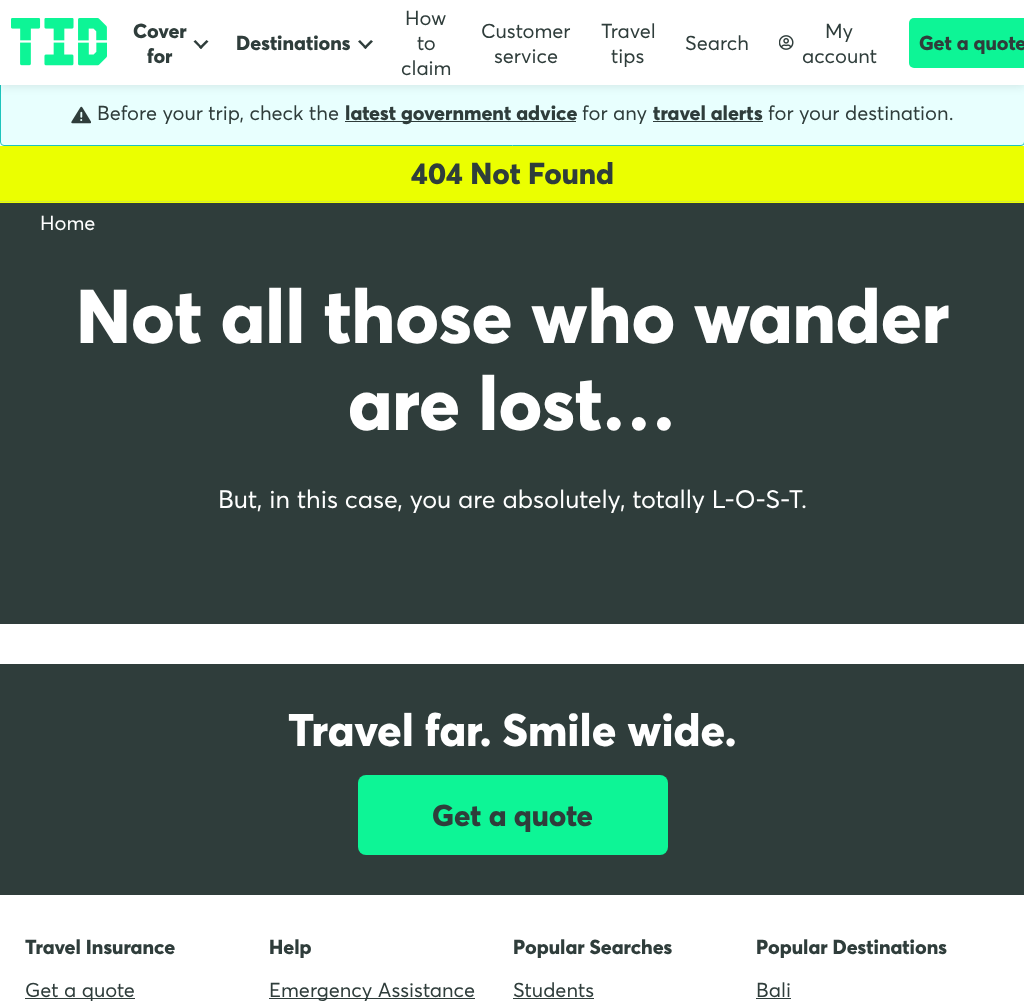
async function draw(canvas) {
  canvas.width = 1024
  canvas.height = 1008
  const ctx = canvas.getContext('2d')
  ctx.miterLimit = 4
  ctx.fontKerning = 'normal'
  async function loadImage(src) {
    const img = new Image()
    img.src = src
    await img.decode()
    return img
  }

  ctx.fillStyle = '#fff'
  ctx.fillRect(0, 0, 1024, 1008)
  ctx.fillStyle = '#e8fffe'
  ctx.beginPath()
  ctx.roundRect(0.5, 80.5, 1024, 65, 3.5)
  ctx.fill()
  ctx.strokeStyle = '#1dc4bc'
  ctx.stroke()
  ctx.fillStyle = '#0000001a'
  ctx.filter = 'blur(5px)'
  ctx.beginPath()
  ctx.rect(0, 1, 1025, 85)
  ctx.fill()
  ctx.filter = 'none'
  ctx.fillStyle = '#fff'
  ctx.fillRect(0, 0, 1024, 85)
  ctx.drawImage(await loadImage('image0.png'), 11, 18, 96, 48)
  ctx.font = '800 20px "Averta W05"'
  ctx.fillStyle = '#2f3d3b'
  ctx.fillText('Cover', 133, 38)
  ctx.beginPath()
  ctx.moveTo(199, 47.5)
  ctx.lineTo(206.5, 40)
  ctx.lineTo(208.5, 41.5)
  ctx.lineTo(201, 49)
  ctx.closePath()
  ctx.fill()
  ctx.beginPath()
  ctx.moveTo(193.5, 41.5)
  ctx.lineTo(195.5, 40)
  ctx.lineTo(202.5, 47.5)
  ctx.lineTo(201, 49)
  ctx.closePath()
  ctx.fill()
  ctx.fillText('for', 147, 63)
  ctx.fillText('Destinations', 236, 50)
  ctx.beginPath()
  ctx.moveTo(363.5, 47.5)
  ctx.lineTo(371, 40)
  ctx.lineTo(373, 41.5)
  ctx.lineTo(365.5, 49)
  ctx.closePath()
  ctx.fill()
  ctx.beginPath()
  ctx.moveTo(358, 41.5)
  ctx.lineTo(360, 40)
  ctx.lineTo(367, 47.5)
  ctx.lineTo(365.5, 49)
  ctx.closePath()
  ctx.fill()
  ctx.font = '20px "Averta W05"'
  ctx.fillText('How', 405, 25)
  ctx.fillText('to', 417, 50)
  ctx.fillText('claim', 401, 75)
  ctx.fillText('Customer', 481, 38)
  ctx.fillText('service', 494, 63)
  ctx.fillText('Travel', 601, 38)
  ctx.fillText('tips', 611, 63)
  ctx.fillText('Search', 685, 50)
  ctx.drawImage(await loadImage('image1.png'), 779, 35, 15, 15)
  ctx.fillText('My', 825, 38)
  ctx.fillText('account', 802, 63)
  ctx.fillStyle = '#0df596'
  ctx.beginPath()
  ctx.roundRect(909, 18, 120, 50, 5)
  ctx.fill()
  ctx.font = '800 20px "Averta W05"'
  ctx.fillStyle = '#2f3d3b'
  ctx.fillText('Get a quote', 919, 50)
  ctx.drawImage(await loadImage('image2.png'), 71, 106, 20, 18)
  ctx.font = '20px "Averta W05"'
  ctx.fillText('Before your trip, check the', 97, 120)
  ctx.fillRect(345, 121, 231, 1)
  ctx.font = '800 20px "Averta W05"'
  ctx.fillText('latest government advice', 345, 120)
  ctx.font = '20px "Averta W05"'
  ctx.fillText('for any', 582, 120)
  ctx.font = '800 20px "Averta W05"'
  ctx.fillText('travel alerts', 653, 120)
  ctx.fillRect(653, 121, 110, 1)
  ctx.font = '20px "Averta W05"'
  ctx.fillText('for your destination.', 768, 120)
  ctx.fillStyle = '#ebff00'
  ctx.fillRect(0, 146, 1024, 57)
  ctx.fillStyle = '#d7e93a'
  ctx.fillRect(0, 201, 1024, 1)
  ctx.font = '800 30px "Averta W05"'
  ctx.fillStyle = '#2f3d3b'
  ctx.fillText('404 Not Found', 411, 184)
  ctx.fillRect(0, 203, 1024, 421)
  ctx.font = '20px "Averta W05"'
  ctx.fillStyle = '#fff'
  ctx.fillText('Home', 40, 230)
  ctx.font = '800 75px "Averta W05"'
  ctx.fillText('Not all those who wander', 76, 343)
  ctx.fillText('are lost…', 348, 430)
  ctx.font = '25px "Averta W05"'
  ctx.fillText('But, in this case, you are absolutely, totally L-O-S-T.', 218, 508)
  ctx.fillStyle = '#2f3d3b'
  ctx.fillRect(0, 664, 1024, 231)
  ctx.font = '800 45px "Averta W05"'
  ctx.fillStyle = '#fff'
  ctx.fillText('Travel far. Smile wide.', 288, 746)
  ctx.fillStyle = '#0df596'
  ctx.beginPath()
  ctx.roundRect(358, 775, 310, 80, 8)
  ctx.fill()
  ctx.font = '800 30px "Averta W05"'
  ctx.fillStyle = '#2f3d3b'
  ctx.fillText('Get a quote', 432, 826)
  ctx.font = '800 20px "Averta W05"'
  ctx.fillText('Travel Insurance', 25, 954)
  ctx.fillRect(25, 998, 110, 1)
  ctx.font = '20px "Averta W05"'
  ctx.fillText('Get a quote', 25, 997)
  ctx.font = '800 20px "Averta W05"'
  ctx.fillText('Help', 269, 954)
  ctx.fillRect(269, 998, 206, 1)
  ctx.font = '20px "Averta W05"'
  ctx.fillText('Emergency Assistance', 269, 997)
  ctx.font = '800 20px "Averta W05"'
  ctx.fillText('Popular Searches', 513, 954)
  ctx.font = '20px "Averta W05"'
  ctx.fillText('Students', 513, 997)
  ctx.fillRect(513, 998, 81, 1)
  ctx.font = '800 20px "Averta W05"'
  ctx.fillText('Popular Destinations', 756, 954)
  ctx.font = '20px "Averta W05"'
  ctx.fillText('Bali', 756, 997)
  ctx.fillRect(756, 998, 35, 1)
}

draw(document.querySelector('canvas'))
